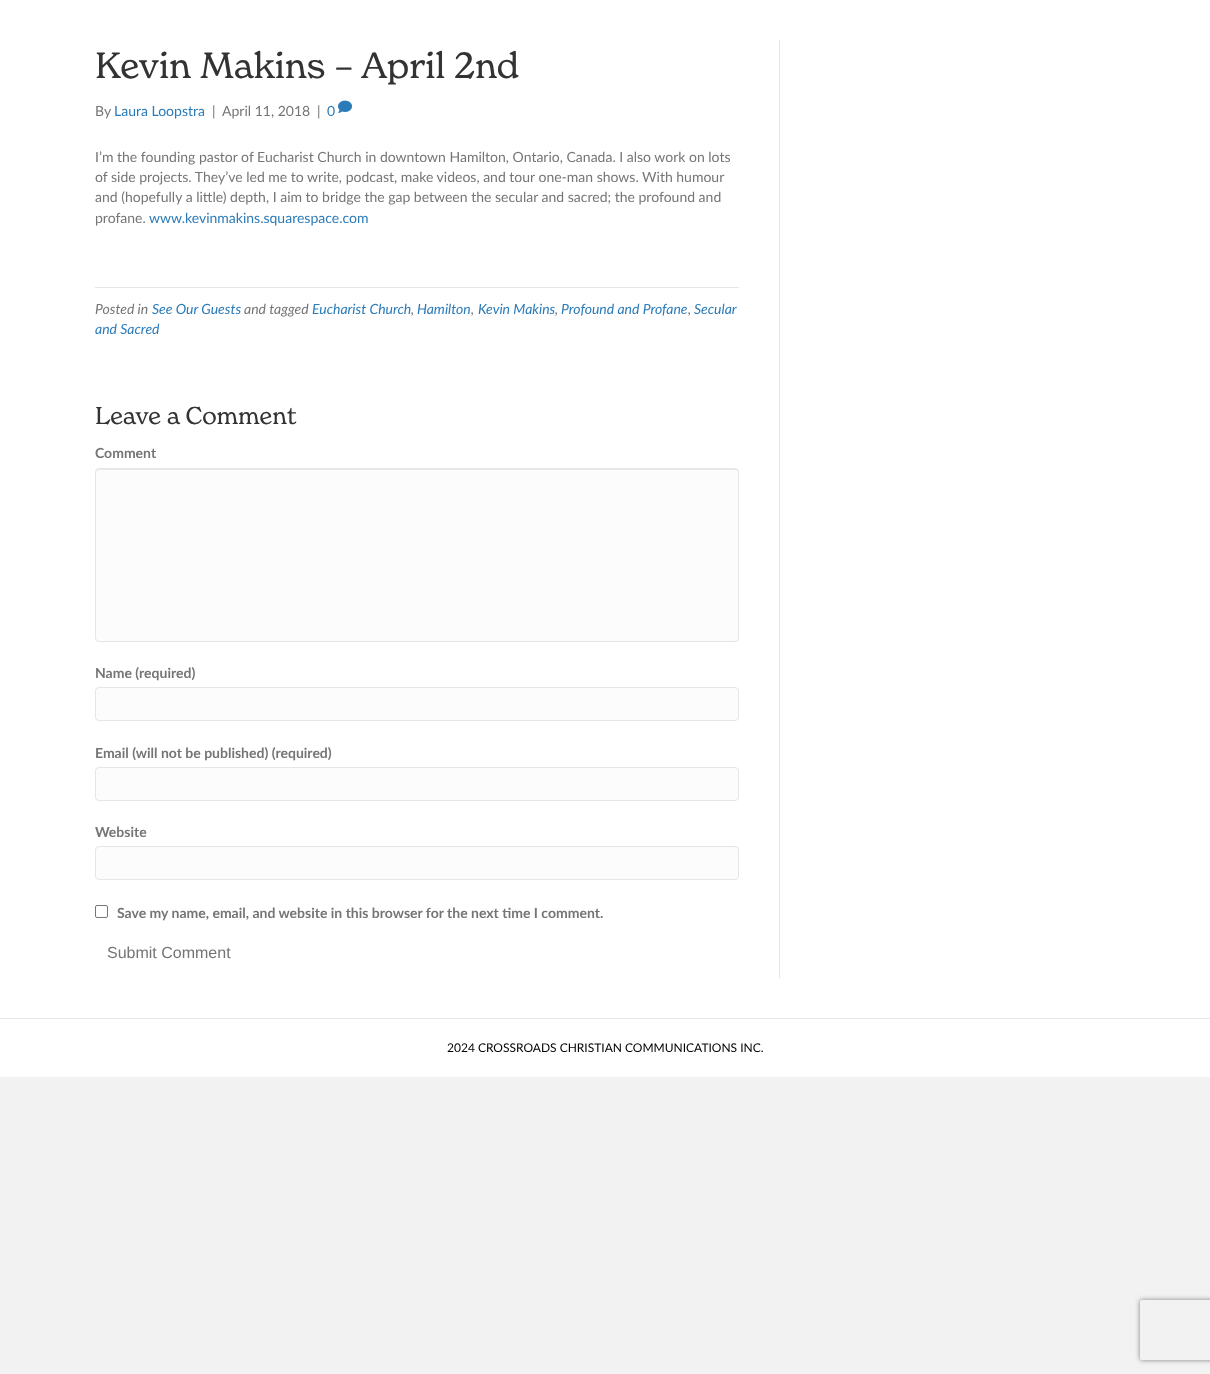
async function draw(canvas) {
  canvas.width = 1210
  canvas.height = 1374
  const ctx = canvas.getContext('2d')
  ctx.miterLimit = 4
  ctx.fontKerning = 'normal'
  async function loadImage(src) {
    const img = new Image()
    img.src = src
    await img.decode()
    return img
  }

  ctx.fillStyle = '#f2f2f2'
  ctx.fillRect(0, 0, 1210, 1374)
  ctx.fillStyle = '#fff'
  ctx.fillRect(0, 0, 1210, 1018)
  ctx.fillStyle = '#e6e6e6'
  ctx.fillRect(779, 40, 1, 938)
  ctx.font = '36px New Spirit'
  ctx.fillStyle = '#333'
  ctx.fillText('Kevin Makins – April 2nd', 95, 78)
  ctx.font = '14px Lato'
  ctx.fillStyle = '#757575'
  ctx.fillText('By', 95, 116)
  ctx.fillStyle = '#2b7bb9'
  ctx.fillText('Laura Loopstra', 114, 116)
  ctx.fillStyle = '#757575'
  ctx.fillText('|', 212, 116)
  ctx.fillText('April 11, 2018', 222, 116)
  ctx.fillText('|', 317, 116)
  ctx.fillStyle = '#2b7bb9'
  ctx.fillText('0', 327, 116)
  ctx.drawImage(await loadImage('image0.png'), 338, 100, 14, 13)
  ctx.fillStyle = '#757575'
  ctx.fillText('I’m the founding pastor of Eucharist Church in downtown Hamilton, Ontario, Canada. I also work on lots', 95, 162)
  ctx.fillText('of side projects. They’ve led me to write, podcast, make videos, and tour one-man shows. With humour', 95, 182)
  ctx.fillText('and (hopefully a little) depth, I aim to bridge the gap between the secular and sacred; the profound and', 95, 202)
  ctx.fillText('profane.', 95, 223)
  ctx.fillStyle = '#2b7bb9'
  ctx.fillText('www.kevinmakins.squarespace.com', 149, 223)
  ctx.fillStyle = '#e6e6e6'
  ctx.fillRect(95, 287, 644, 1)
  ctx.font = 'italic 14px Lato'
  ctx.fillStyle = '#757575'
  ctx.fillText('Posted in', 95, 314)
  ctx.fillStyle = '#2b7bb9'
  ctx.fillText('See Our Guests', 152, 314)
  ctx.fillStyle = '#757575'
  ctx.fillText('and tagged', 244, 314)
  ctx.fillStyle = '#2b7bb9'
  ctx.fillText('Eucharist Church', 312, 314)
  ctx.fillStyle = '#757575'
  ctx.fillText(',', 411, 314)
  ctx.fillStyle = '#2b7bb9'
  ctx.fillText('Hamilton', 417, 314)
  ctx.fillStyle = '#757575'
  ctx.fillText(',', 471, 314)
  ctx.fillStyle = '#2b7bb9'
  ctx.fillText('Kevin Makins', 478, 314)
  ctx.fillStyle = '#757575'
  ctx.fillText(',', 555, 314)
  ctx.fillStyle = '#2b7bb9'
  ctx.fillText('Profound and Profane', 561, 314)
  ctx.fillStyle = '#757575'
  ctx.fillText(',', 688, 314)
  ctx.fillStyle = '#2b7bb9'
  ctx.fillText('Secular', 694, 314)
  ctx.fillText('and Sacred', 95, 334)
  ctx.font = '24px New Spirit'
  ctx.fillStyle = '#333'
  ctx.fillText('Leave a Comment', 95, 424)
  ctx.font = 'bold 14px Lato'
  ctx.fillStyle = '#757575'
  ctx.fillText('Comment', 95, 458)
  ctx.fillStyle = '#fcfcfc'
  ctx.beginPath()
  ctx.roundRect(95, 468, 644, 174, 4)
  ctx.fill()
  ctx.fillStyle = '#e9e9e9'
  ctx.beginPath()
  ctx.moveTo(99, 470)
  ctx.lineTo(735, 470)
  ctx.bezierCurveTo(737, 470, 738, 471, 738, 473)
  ctx.lineTo(738, 472)
  ctx.bezierCurveTo(738, 470, 737, 469, 735, 469)
  ctx.lineTo(99, 469)
  ctx.bezierCurveTo(97, 469, 96, 470, 96, 472)
  ctx.lineTo(96, 473)
  ctx.bezierCurveTo(96, 471, 97, 470, 99, 470)
  ctx.closePath()
  ctx.fill()
  ctx.beginPath()
  ctx.roundRect(95.5, 468.5, 643, 173, 3.5)
  ctx.strokeStyle = '#e6e6e6'
  ctx.stroke()
  ctx.fillStyle = '#757575'
  ctx.fillText('Name (required)', 95, 678)
  ctx.fillStyle = '#fcfcfc'
  ctx.beginPath()
  ctx.roundRect(95.5, 687.5, 643, 33, 3.5)
  ctx.fill()
  ctx.stroke()
  ctx.fillStyle = '#757575'
  ctx.fillText('Email (will not be published) (required)', 95, 758)
  ctx.fillStyle = '#fcfcfc'
  ctx.beginPath()
  ctx.roundRect(95.5, 767.5, 643, 33, 3.5)
  ctx.fill()
  ctx.stroke()
  ctx.fillStyle = '#757575'
  ctx.fillText('Website', 95, 837)
  ctx.fillStyle = '#fcfcfc'
  ctx.beginPath()
  ctx.roundRect(95.5, 846.5, 643, 33, 3.5)
  ctx.fill()
  ctx.stroke()
  ctx.beginPath()
  ctx.roundRect(95.5, 905.5, 12, 12, 1.5)
  ctx.strokeStyle = '#767676'
  ctx.stroke()
  ctx.fillStyle = '#757575'
  ctx.fillText('Save my name, email, and website in this browser for the next time I comment.', 117, 918)
  ctx.font = '16px Liberation Sans'
  ctx.fillText('Submit Comment', 107, 958)
  ctx.fillStyle = '#fff'
  ctx.fillRect(0, 1019, 1210, 58)
  ctx.fillStyle = '#e6e6e6'
  ctx.fillRect(0, 1018, 1210, 1)
  ctx.font = '12px Lato'
  ctx.fillStyle = '#000'
  ctx.fillText('2024 CROSSROADS CHRISTIAN COMMUNICATIONS INC.', 447, 1052)
  ctx.save()
  ctx.beginPath()
  ctx.moveTo(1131, 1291)
  ctx.lineTo(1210, 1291)
  ctx.lineTo(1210, 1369)
  ctx.lineTo(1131, 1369)
  ctx.closePath()
  ctx.moveTo(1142, 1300)
  ctx.lineTo(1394, 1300)
  ctx.bezierCurveTo(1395, 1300, 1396, 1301, 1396, 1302)
  ctx.lineTo(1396, 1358)
  ctx.bezierCurveTo(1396, 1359, 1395, 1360, 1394, 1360)
  ctx.lineTo(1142, 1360)
  ctx.bezierCurveTo(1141, 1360, 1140, 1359, 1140, 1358)
  ctx.lineTo(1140, 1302)
  ctx.bezierCurveTo(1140, 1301, 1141, 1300, 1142, 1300)
  ctx.closePath()
  ctx.clip('evenodd')
  ctx.fillStyle = '#808080'
  ctx.filter = 'blur(2.5px)'
  ctx.beginPath()
  ctx.roundRect(1140, 1300, 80, 60, 2)
  ctx.fill()
  ctx.filter = 'none'
  ctx.restore()
}

draw(document.querySelector('canvas'))
